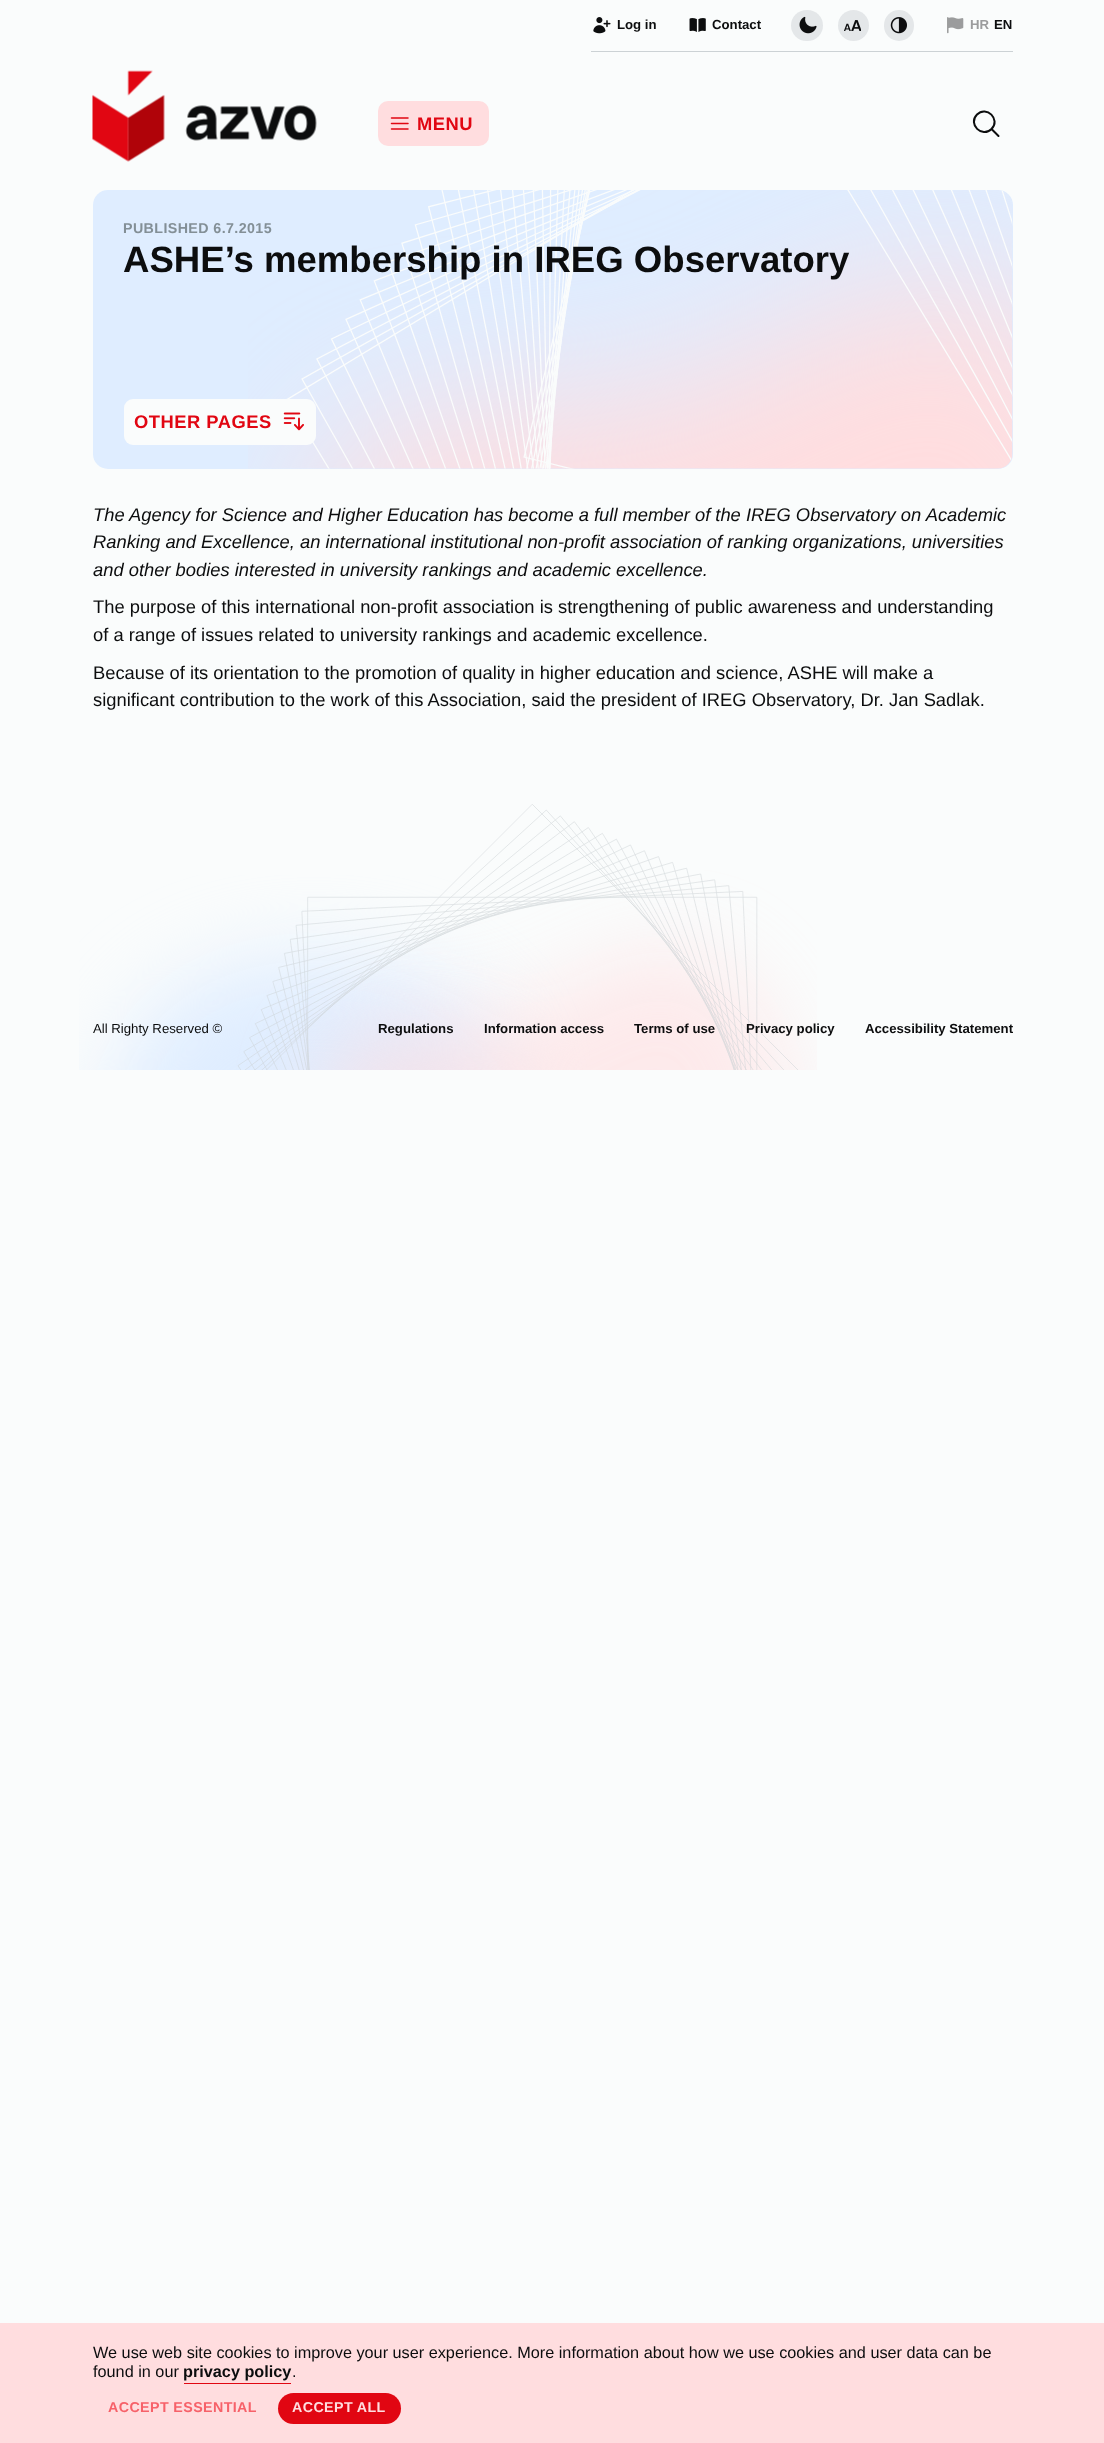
async function draw(canvas) {
  canvas.width = 1104
  canvas.height = 2443
  const ctx = canvas.getContext('2d')
  ctx.miterLimit = 4
  ctx.fontKerning = 'normal'
  async function loadImage(src) {
    const img = new Image()
    img.src = src
    await img.decode()
    return img
  }

  ctx.fillStyle = '#fafcfc'
  ctx.fillRect(0, 0, 1104, 2443)
  ctx.fillStyle = '#ccd2d5'
  ctx.fillRect(591, 51, 422, 1)
  ctx.drawImage(await loadImage('image0.png'), 593, 17, 18, 17)
  ctx.font = 'bold 13.2px Liberation Sans'
  ctx.fillStyle = '#0c0d0e'
  ctx.fillText('Log in', 617, 29)
  ctx.drawImage(await loadImage('image1.png'), 689, 18, 17, 14)
  ctx.fillText('Contact', 712, 29)
  ctx.fillStyle = '#e4e7e9'
  ctx.beginPath()
  ctx.roundRect(791, 10, 32, 31, 15.5)
  ctx.fill()
  ctx.drawImage(await loadImage('image2.png'), 799, 16, 18, 18)
  ctx.beginPath()
  ctx.arc(853.5, 25.5, 15.5, 0, 2 * Math.PI)
  ctx.fill()
  ctx.drawImage(await loadImage('image3.png'), 844, 20, 17, 11)
  ctx.beginPath()
  ctx.roundRect(884, 10, 30, 31, 15)
  ctx.fill()
  ctx.drawImage(await loadImage('image4.png'), 890, 17, 17, 17)
  ctx.drawImage(await loadImage('image5.png'), 947, 17, 17, 17)
  ctx.fillStyle = '#9b9c9d'
  ctx.fillText('HR', 970, 29)
  ctx.fillStyle = '#0c0d0e'
  ctx.fillText('EN', 994, 29)
  ctx.drawImage(await loadImage('image6.png'), 92, 70, 225, 92)
  ctx.fillStyle = '#ffdddf'
  ctx.beginPath()
  ctx.roundRect(378, 101, 111, 45, 10)
  ctx.fill()
  ctx.beginPath()
  ctx.moveTo(391.5, 118)
  ctx.lineTo(408, 118)
  ctx.moveTo(391.5, 123.5)
  ctx.lineTo(408, 123.5)
  ctx.moveTo(391.5, 129)
  ctx.lineTo(408, 129)
  ctx.strokeStyle = '#e10612'
  ctx.lineWidth = 1.5
  ctx.lineCap = 'round'
  ctx.lineJoin = 'round'
  ctx.stroke()
  ctx.letterSpacing = '0.5px'
  ctx.font = 'bold 18.35px Liberation Sans'
  ctx.fillStyle = '#e10612'
  ctx.fillText('MENU', 417, 130)
  ctx.beginPath()
  ctx.moveTo(998.5, 136)
  ctx.lineTo(991.5, 129)
  ctx.moveTo(991.5, 129)
  ctx.bezierCurveTo(1001, 119.5, 986.5, 105, 977, 114.5)
  ctx.bezierCurveTo(967.5, 124, 982, 138.5, 991.5, 129)
  ctx.closePath()
  ctx.strokeStyle = '#0c0d0e'
  ctx.lineWidth = 2
  ctx.stroke()
  ctx.fillStyle = '#dfedff'
  ctx.beginPath()
  ctx.roundRect(93, 190, 920, 279, 15)
  ctx.fill()
  ctx.drawImage(await loadImage('image7.png'), 248, 190, 765, 279)
  ctx.letterSpacing = '0.4px'
  ctx.font = 'bold 14.25px Liberation Sans'
  ctx.fillStyle = '#838f96'
  ctx.fillText('PUBLISHED 6.7.2015', 123, 233)
  ctx.letterSpacing = '0px'
  ctx.font = 'bold 36.6px Liberation Sans'
  ctx.fillStyle = '#0c0d0e'
  ctx.fillText('ASHE’s membership in IREG Observatory', 123, 272)
  ctx.fillStyle = '#fafcfc'
  ctx.beginPath()
  ctx.roundRect(124, 399, 192, 46, 9)
  ctx.fill()
  ctx.letterSpacing = '0.5px'
  ctx.font = 'bold 18.35px Liberation Sans'
  ctx.fillStyle = '#e10612'
  ctx.fillText('OTHER PAGES', 134, 428)
  ctx.drawImage(await loadImage('image8.png'), 283, 412, 21, 19)
  ctx.letterSpacing = '0px'
  ctx.font = 'italic 18.35px Liberation Sans'
  ctx.fillStyle = '#0c0d0e'
  ctx.fillText('The Agency for Science and Higher Education has become a full member of the IREG Observatory on Academic', 93, 521)
  ctx.fillText('Ranking and Excellence, an international institutional non-profit association of ranking organizations, universities', 93, 548)
  ctx.fillText('and other bodies interested in university rankings and academic excellence.', 93, 576)
  ctx.font = '18.35px Liberation Sans'
  ctx.fillText('The purpose of this international non-profit association is strengthening of public awareness and understanding', 93, 613)
  ctx.fillText('of a range of issues related to university rankings and academic excellence.', 93, 641)
  ctx.fillText('Because of its orientation to the promotion of quality in higher education and science, ASHE will make a', 93, 679)
  ctx.fillText('significant contribution to the work of this Association, said the president of IREG Observatory, Dr. Jan Sadlak.', 93, 706)
  ctx.drawImage(await loadImage('image9.png'), 79, 804, 738, 266)
  ctx.font = '13.2px Liberation Sans'
  ctx.fillText('All Righty Reserved ©', 93, 1033)
  ctx.font = 'bold 13.2px Liberation Sans'
  ctx.fillText('Regulations', 378, 1033)
  ctx.fillText('Information access', 484, 1033)
  ctx.fillText('Terms of use', 634, 1033)
  ctx.fillText('Privacy policy', 746, 1033)
  ctx.fillText('Accessibility Statement', 865, 1033)
  ctx.fillStyle = '#ffdddf'
  ctx.fillRect(0, 2323, 1104, 120)
  ctx.font = '16.25px Liberation Sans'
  ctx.fillStyle = '#0c0d0e'
  ctx.fillText('We use web site cookies to improve your user experience. More information about how we use cookies and user data can be', 93, 2358)
  ctx.fillText('found in our', 93, 2377)
  ctx.font = 'bold 16.25px Liberation Sans'
  ctx.fillText('privacy policy', 183, 2377)
  ctx.fillStyle = '#e10612'
  ctx.fillRect(184, 2383, 107, 1)
  ctx.font = '16.25px Liberation Sans'
  ctx.fillStyle = '#0c0d0e'
  ctx.fillText('.', 292, 2377)
  ctx.letterSpacing = '0.4px'
  ctx.font = 'bold 14.25px Liberation Sans'
  ctx.fillStyle = '#f76169'
  ctx.fillText('ACCEPT ESSENTIAL', 108, 2412)
  ctx.fillStyle = '#e10612'
  ctx.beginPath()
  ctx.roundRect(278, 2393, 123, 31, 15.5)
  ctx.fill()
  ctx.fillStyle = '#ffdddf'
  ctx.fillText('ACCEPT ALL', 292, 2412)
}

draw(document.querySelector('canvas'))
